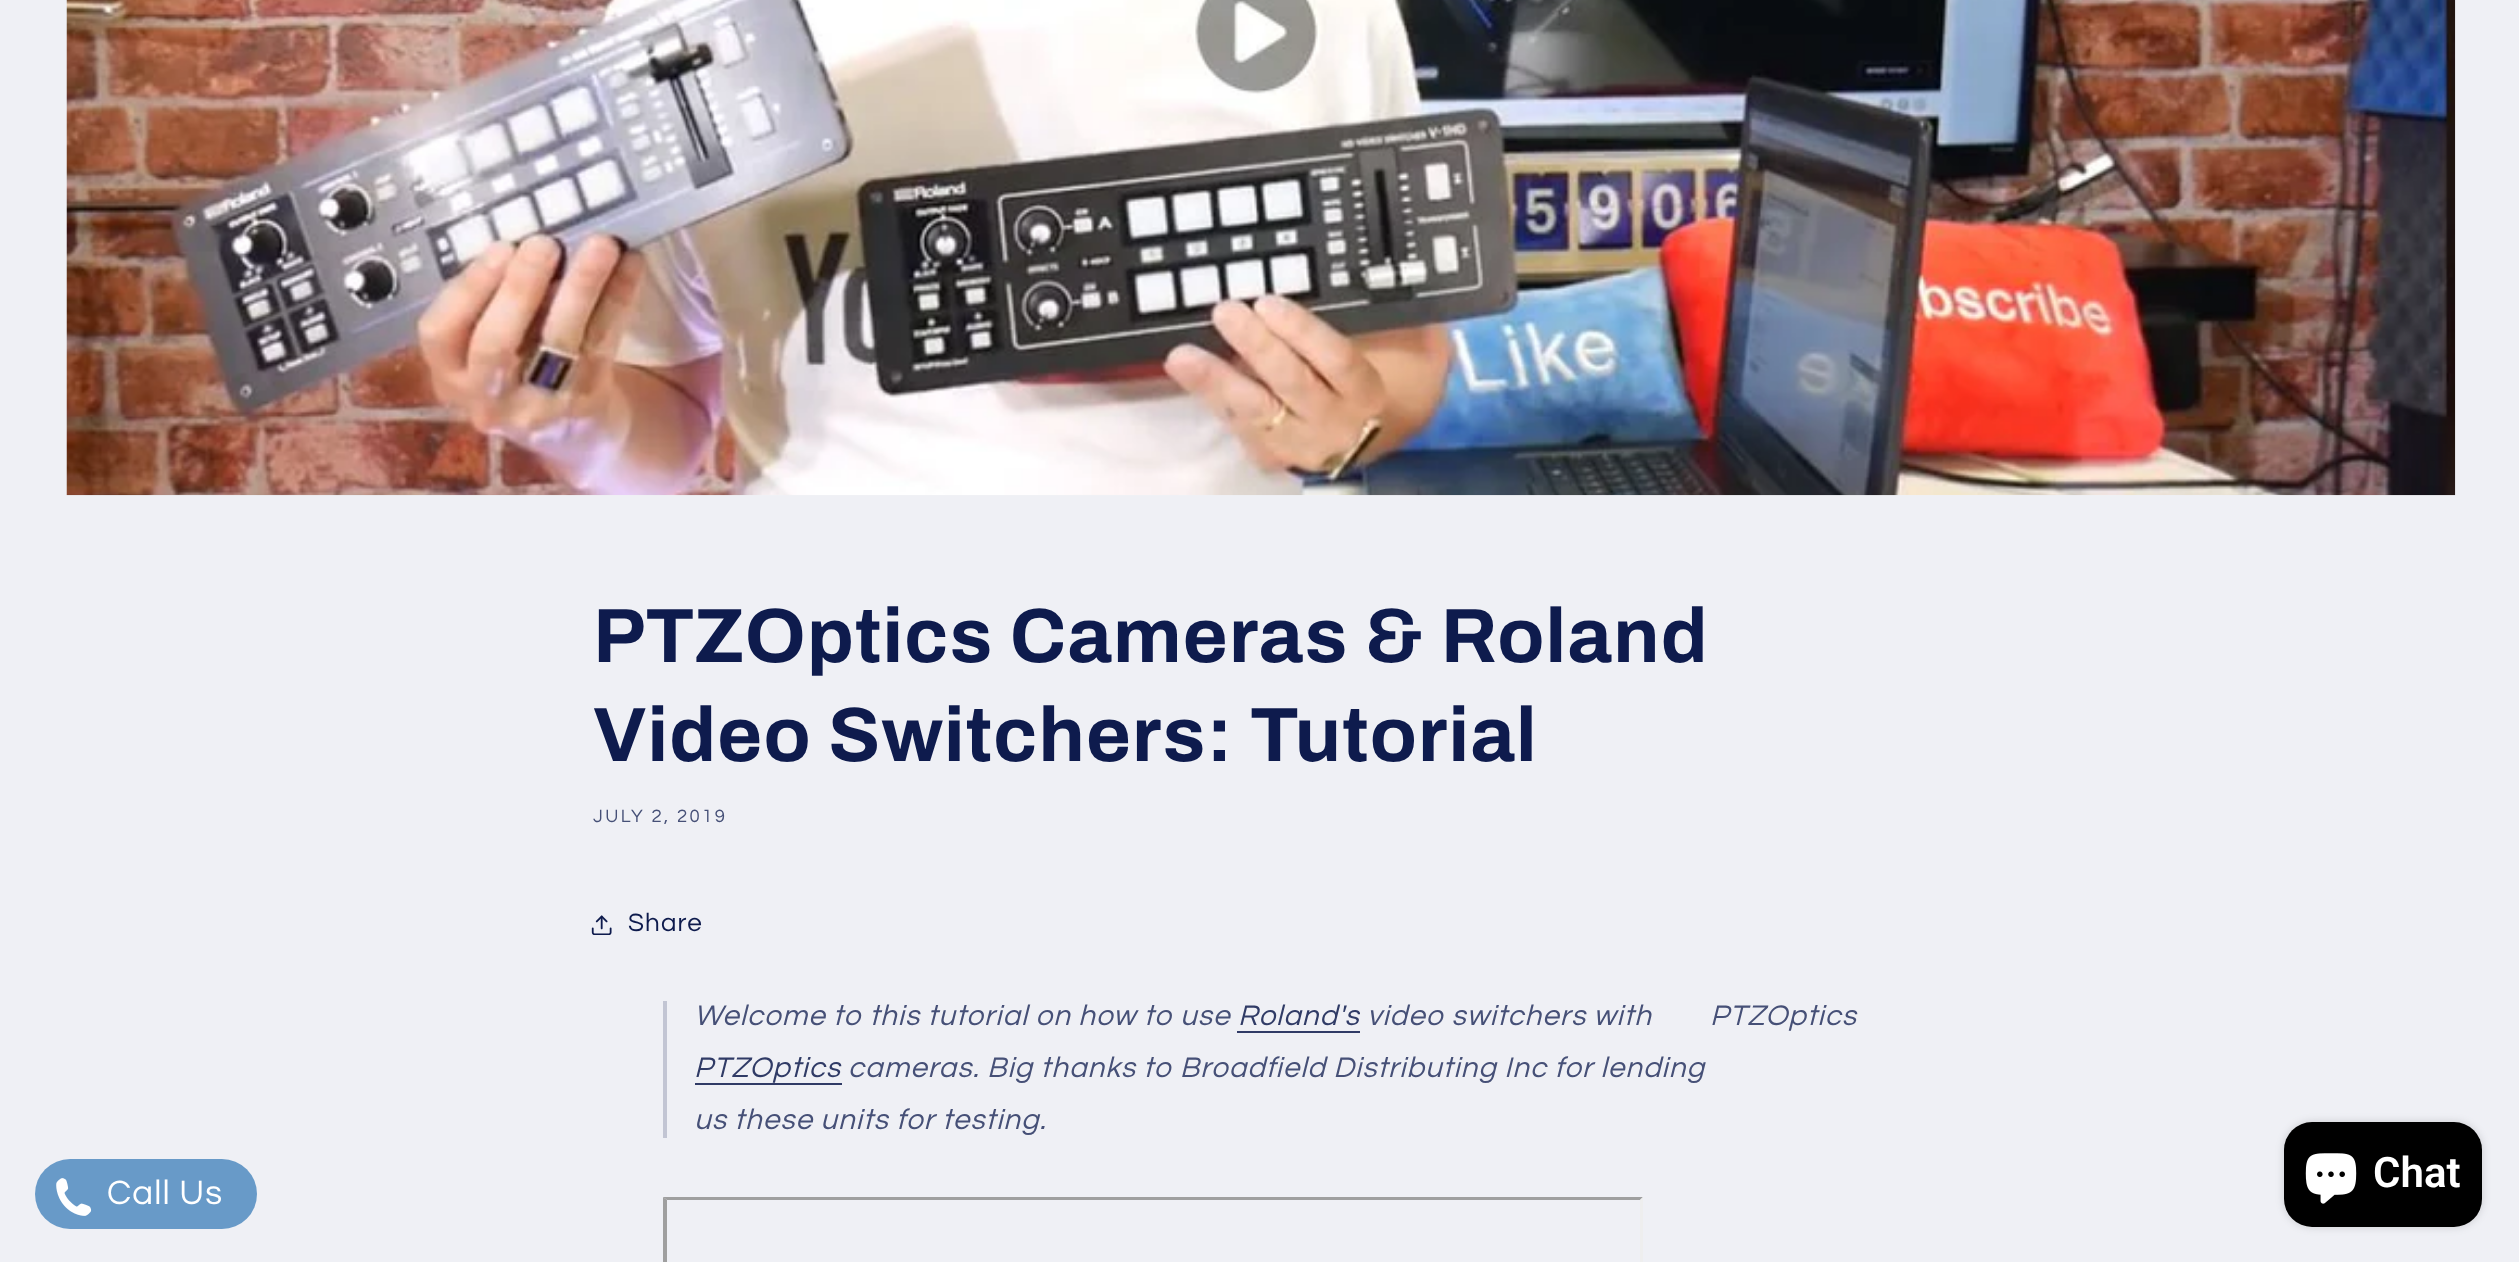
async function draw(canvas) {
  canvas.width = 2519
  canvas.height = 1262
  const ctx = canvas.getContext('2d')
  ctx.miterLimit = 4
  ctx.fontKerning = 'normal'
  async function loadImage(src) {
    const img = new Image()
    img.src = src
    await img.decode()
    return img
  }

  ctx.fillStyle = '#eff0f5'
  ctx.fillRect(0, 0, 2519, 1262)
  ctx.drawImage(await loadImage('image0.png'), 66, 0, 2390, 496)
  ctx.letterSpacing = '1.15px'
  ctx.font = 'bold 77px Archivo'
  ctx.fillStyle = '#0e1b4d'
  ctx.fillText('PTZOptics Cameras & Roland', 593, 662)
  ctx.fillText('Video Switchers: Tutorial', 593, 761)
  ctx.letterSpacing = '2.4px'
  ctx.font = '18.5px Questrial'
  ctx.fillStyle = '#465077'
  ctx.fillText('JULY 2, 2019', 593, 822)
  ctx.drawImage(await loadImage('image1.png'), 591, 915, 21, 20)
  ctx.letterSpacing = '1.1px'
  ctx.font = '26px Questrial'
  ctx.fillStyle = '#0e1b4d'
  ctx.fillText('Share', 628, 931)
  ctx.fillStyle = '#c2c5d3'
  ctx.fillRect(663, 1001, 4, 137)
  ctx.font = 'italic 29.4px Questrial'
  ctx.fillStyle = '#465077'
  ctx.fillText('Welcome to this tutorial on how to use', 694, 1025)
  ctx.fillStyle = '#303b66'
  ctx.fillText('Roland\'s', 1238, 1025)
  ctx.fillRect(1237, 1031, 123, 2)
  ctx.fillStyle = '#465077'
  ctx.fillText('video switchers with', 1367, 1025)
  ctx.fillStyle = '#303b66'
  ctx.fillText('PTZOptics', 694, 1077)
  ctx.fillRect(695, 1083, 147, 2)
  ctx.fillStyle = '#465077'
  ctx.fillText('cameras. Big thanks to Broadfield Distributing Inc for lending', 848, 1077)
  ctx.fillText('us these units for testing.', 694, 1129)
  ctx.fillText('PTZOptics', 1710, 1025)
  ctx.fillStyle = '#9f9f9f'
  ctx.beginPath()
  ctx.moveTo(663, 1197)
  ctx.lineTo(1643, 1197)
  ctx.lineTo(1640, 1200)
  ctx.lineTo(667, 1200)
  ctx.closePath()
  ctx.fill()
  ctx.beginPath()
  ctx.moveTo(663, 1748)
  ctx.lineTo(663, 1197)
  ctx.lineTo(667, 1200)
  ctx.lineTo(667, 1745)
  ctx.closePath()
  ctx.fill()
  ctx.fillStyle = '#eee'
  ctx.beginPath()
  ctx.moveTo(1643, 1197)
  ctx.lineTo(1643, 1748)
  ctx.lineTo(1640, 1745)
  ctx.lineTo(1640, 1200)
  ctx.closePath()
  ctx.fill()
  ctx.fillStyle = '#00000026'
  ctx.filter = 'blur(4.5px)'
  ctx.beginPath()
  ctx.roundRect(2284, 1122, 198, 105, 28)
  ctx.fill()
  ctx.filter = 'none'
  ctx.fillStyle = '#000'
  ctx.beginPath()
  ctx.roundRect(2284, 1122, 198, 105, 28)
  ctx.fill()
  ctx.drawImage(await loadImage('image2.png'), 2305, 1153, 52, 51)
  ctx.letterSpacing = '0px'
  ctx.font = '600 42px Roboto'
  ctx.fillStyle = '#fff'
  ctx.fillText('Chat', 2373, 1187)
  ctx.fillStyle = '#689ac8'
  ctx.beginPath()
  ctx.roundRect(35, 1159, 222, 70, 35)
  ctx.fill()
  ctx.drawImage(await loadImage('image3.png'), 56, 1178, 36, 38)
  ctx.letterSpacing = '1.1px'
  ctx.font = '35px Questrial'
  ctx.fillStyle = '#fff'
  ctx.fillText('Call Us', 107, 1204)
}

draw(document.querySelector('canvas'))
